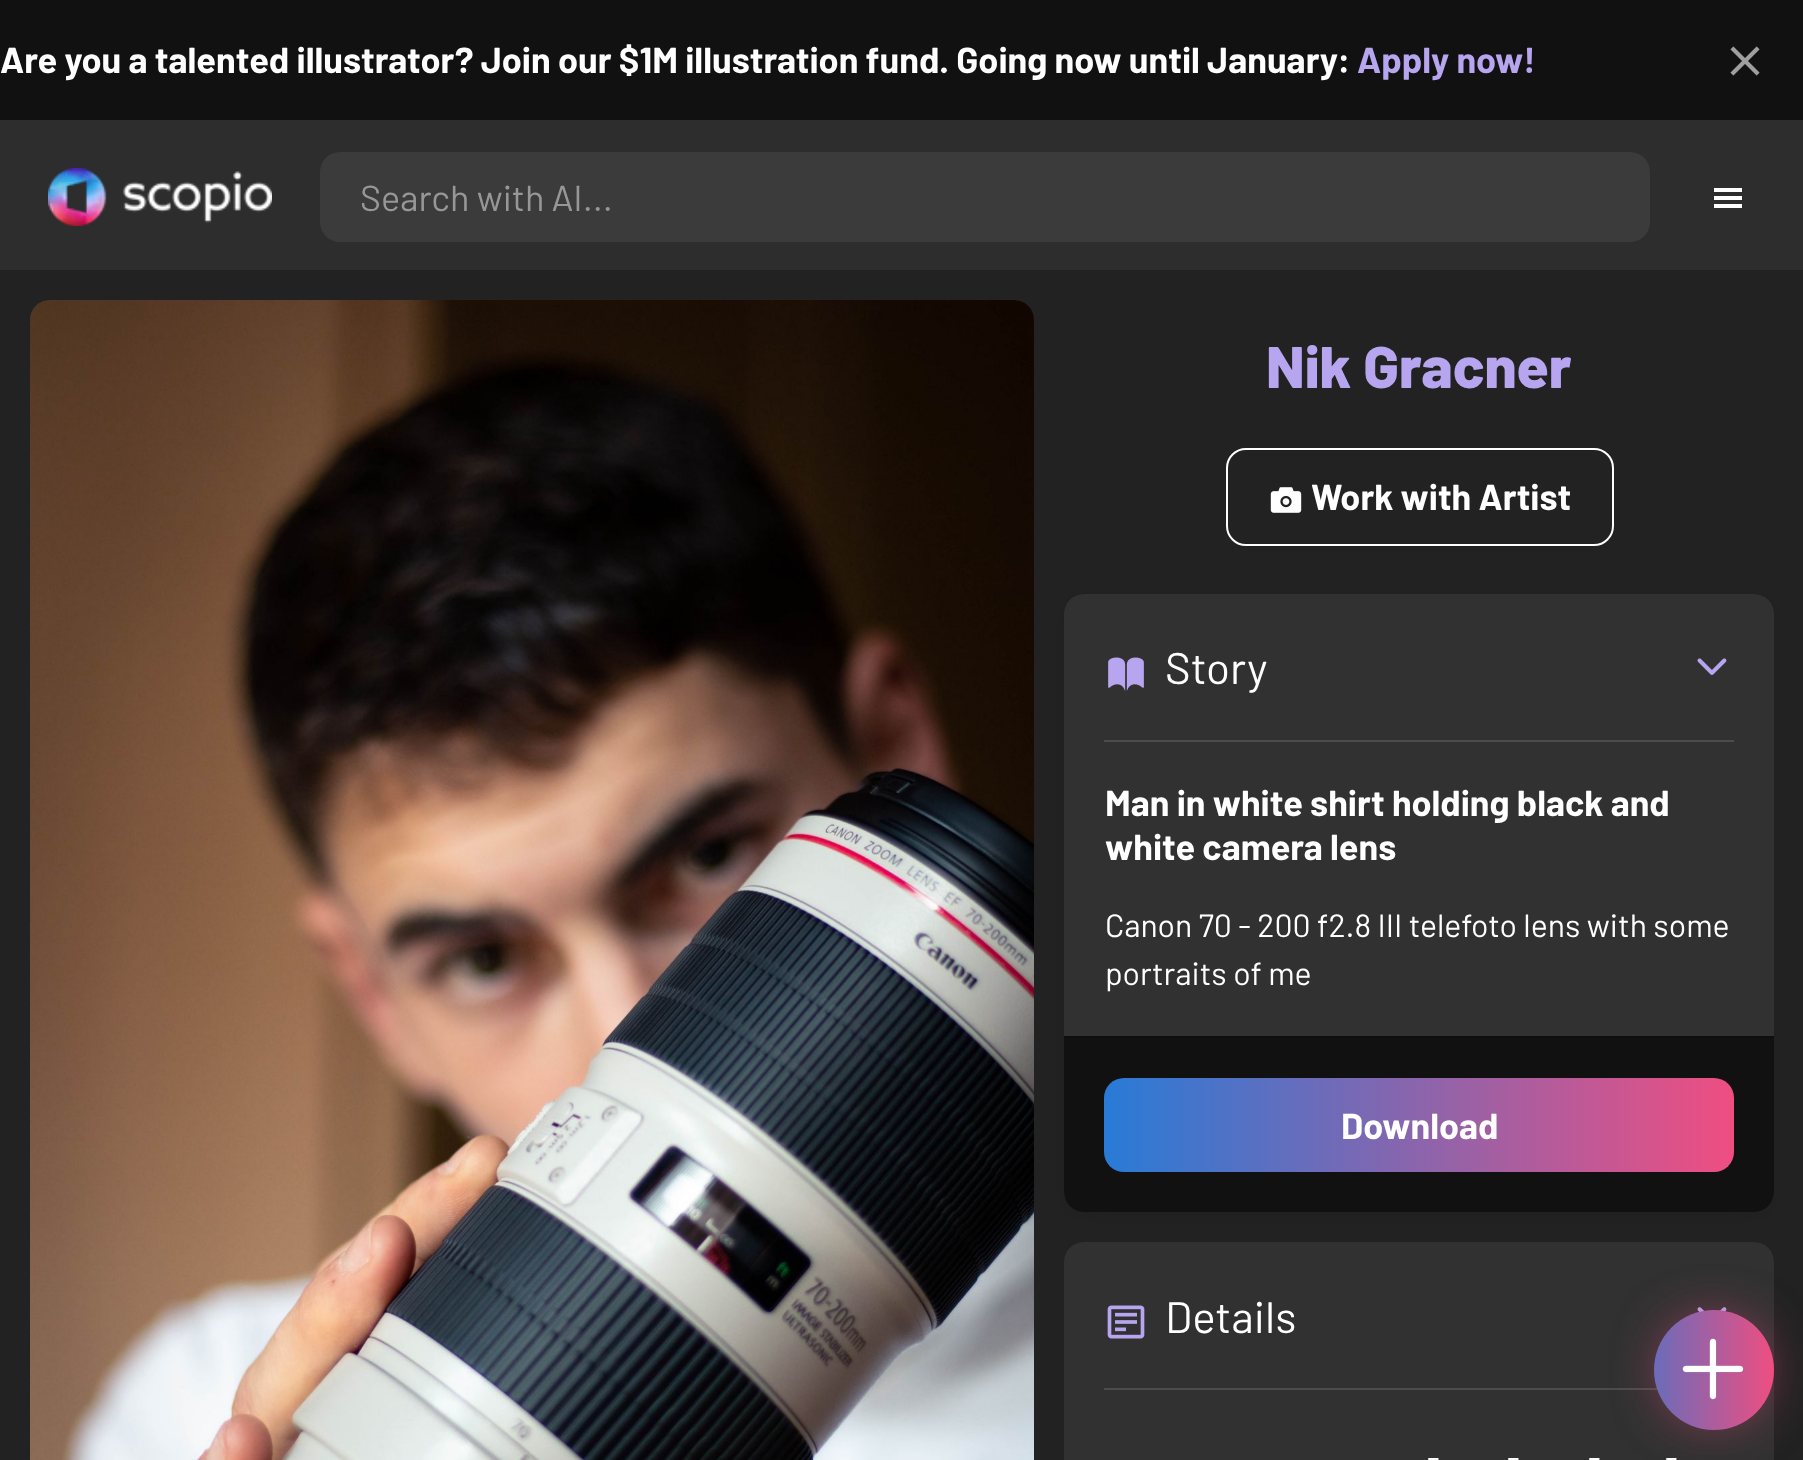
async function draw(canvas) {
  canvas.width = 1803
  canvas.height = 1460
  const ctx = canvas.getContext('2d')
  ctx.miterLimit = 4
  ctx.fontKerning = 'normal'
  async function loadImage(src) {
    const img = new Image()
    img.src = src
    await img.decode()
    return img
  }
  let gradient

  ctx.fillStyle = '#222'
  ctx.fillRect(0, 0, 1803, 1460)
  ctx.fillStyle = '#111'
  ctx.fillRect(0, 0, 1803, 120)
  ctx.font = 'bold 36.1px Barlow'
  ctx.fillStyle = '#fff'
  ctx.fillText('Are you a talented illustrator? Join our $1M illustration fund. Going now until January:', 0, 73)
  ctx.fillStyle = '#b7a5ef'
  ctx.fillText('Apply now!', 1357, 73)
  ctx.drawImage(await loadImage('image0.png'), 1730, 46, 30, 30)
  ctx.fillStyle = '#313131'
  ctx.beginPath()
  ctx.roundRect(30, 300, 1004, 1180, 20)
  ctx.fill()
  ctx.drawImage(await loadImage('image1.png'), 30, 300, 1004, 1160)
  ctx.font = '800 58.5px Barlow'
  ctx.fillStyle = '#b7a5ef'
  ctx.fillText('Nik Gracner', 1266, 388)
  ctx.beginPath()
  ctx.roundRect(1227, 449, 386, 96, 19)
  ctx.strokeStyle = '#fff'
  ctx.lineWidth = 2
  ctx.stroke()
  ctx.drawImage(await loadImage('image2.png'), 1270, 487, 32, 26)
  ctx.font = 'bold 36px Barlow'
  ctx.fillStyle = '#fff'
  ctx.fillText('Work with Artist', 1311, 510)
  ctx.fillStyle = '#000'
  ctx.filter = 'blur(12px)'
  ctx.beginPath()
  ctx.rect(1086, 620, 666, 574)
  ctx.fill()
  ctx.filter = 'none'
  ctx.fillStyle = '#313131'
  ctx.beginPath()
  ctx.roundRect(1064, 594, 710, 618, 20)
  ctx.fill()
  ctx.fillStyle = '#4c4c4c'
  ctx.fillRect(1104, 740, 630, 2)
  ctx.drawImage(await loadImage('image3.png'), 1108, 657, 36, 34)
  ctx.font = '44px Barlow'
  ctx.fillStyle = '#fff'
  ctx.fillText('Story', 1165, 684)
  ctx.drawImage(await loadImage('image4.png'), 1697, 658, 30, 17)
  ctx.font = 'bold 36px Barlow'
  ctx.fillText('Man in white shirt holding black and', 1105, 816)
  ctx.fillText('white camera lens', 1105, 860)
  ctx.font = '32px Barlow'
  ctx.fillText('Canon 70 - 200 f2.8 III telefoto lens with some', 1105, 937)
  ctx.fillText('portraits of me', 1105, 985)
  ctx.fillStyle = '#111'
  ctx.beginPath()
  ctx.roundRect(1064, 1036, 710, 176, [0, 0, 20, 20])
  ctx.fill()
  ctx.fillStyle = '#0e0e0e'
  ctx.fillRect(1064, 1036, 710, 2)
  gradient = ctx.createLinearGradient(1104, 1125, 1734, 1125)
  gradient.addColorStop(0, '#287bd7')
  gradient.addColorStop(1, '#ef4e81')
  ctx.fillStyle = gradient
  ctx.beginPath()
  ctx.roundRect(1104, 1078, 630, 94, 20)
  ctx.fill()
  ctx.font = 'bold 36px Barlow'
  ctx.fillStyle = '#fff'
  ctx.fillText('Download', 1341, 1139)
  ctx.fillStyle = '#313131'
  ctx.beginPath()
  ctx.roundRect(1064, 1242, 710, 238, 20)
  ctx.fill()
  ctx.fillStyle = '#4c4c4c'
  ctx.fillRect(1104, 1388, 554, 2)
  ctx.drawImage(await loadImage('image5.png'), 1107, 1305, 38, 34)
  ctx.font = '44px Barlow'
  ctx.fillStyle = '#fff'
  ctx.fillText('Details', 1165, 1333)
  ctx.drawImage(await loadImage('image6.png'), 1697, 1307, 30, 5)
  ctx.font = '32px Barlow'
  ctx.fillText('-', 1427, 1469)
  ctx.fillText('-', 1507, 1469)
  ctx.fillText('-', 1588, 1469)
  ctx.fillText('-', 1665, 1469)
  ctx.fillStyle = '#2d2d2d'
  ctx.fillRect(0, 120, 1803, 150)
  ctx.drawImage(await loadImage('image7.png'), 48, 168, 224, 58)
  ctx.fillStyle = '#3b3b3b'
  ctx.beginPath()
  ctx.roundRect(320, 152, 1330, 90, 20)
  ctx.fill()
  ctx.font = '36px Barlow'
  ctx.fillStyle = '#979797'
  ctx.fillText('Search with AI...', 360, 211)
  ctx.drawImage(await loadImage('image8.png'), 1714, 188, 28, 20)
  ctx.fillStyle = '#ef4e81'
  ctx.filter = 'blur(30px)'
  ctx.beginPath()
  ctx.roundRect(1674, 1330, 80, 80, 40)
  ctx.fill()
  ctx.filter = 'none'
  gradient = ctx.createLinearGradient(1594, 1370, 1774, 1370)
  gradient.addColorStop(0, '#287bd7')
  gradient.addColorStop(1, '#ef4e81')
  ctx.fillStyle = gradient
  ctx.beginPath()
  ctx.arc(1714, 1370, 60, 0, 2 * Math.PI)
  ctx.fill()
  ctx.drawImage(await loadImage('image9.png'), 1682, 1338, 62, 62)
}

draw(document.querySelector('canvas'))
